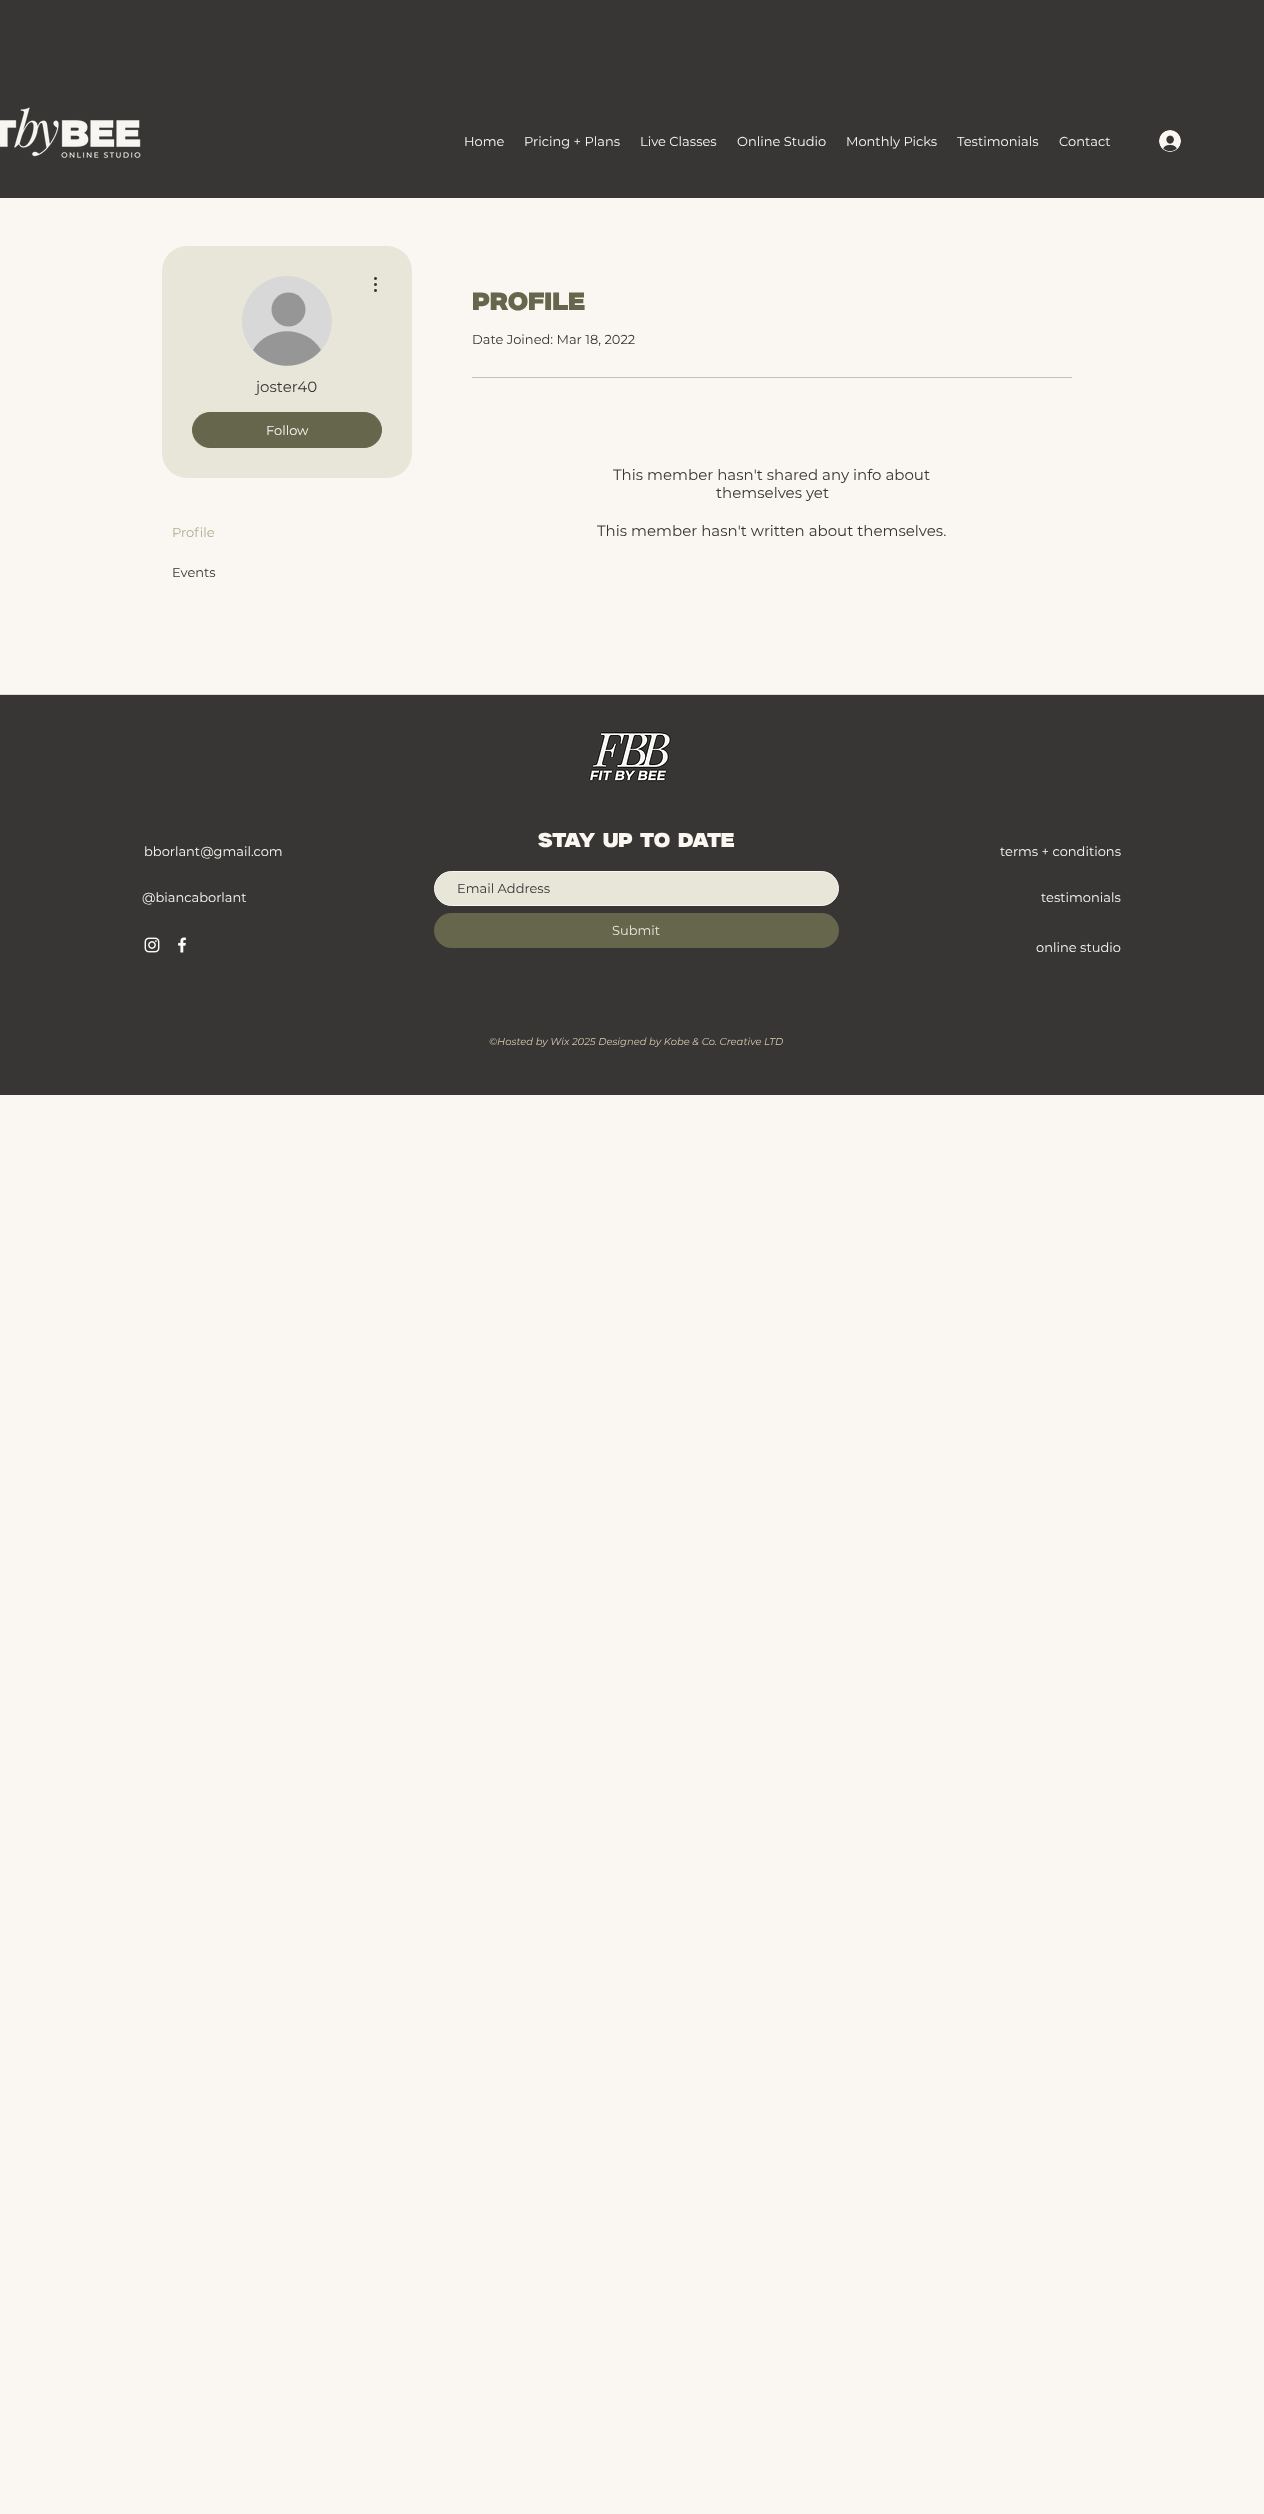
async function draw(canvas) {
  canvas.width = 1264
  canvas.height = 2514
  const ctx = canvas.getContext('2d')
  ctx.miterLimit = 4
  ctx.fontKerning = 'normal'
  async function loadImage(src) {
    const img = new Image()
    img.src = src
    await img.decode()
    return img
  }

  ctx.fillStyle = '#faf7f3'
  ctx.fillRect(0, 0, 1264, 2514)
  ctx.fillStyle = '#373634'
  ctx.fillRect(0, 0, 1264, 198)
  ctx.drawImage(await loadImage('image0.png'), 0, 107, 141, 52)
  ctx.font = '13px Montserrat'
  ctx.fillStyle = '#faf7f3'
  ctx.fillText('Home', 464, 146)
  ctx.fillText('Pricing + Plans', 524, 146)
  ctx.fillText('Live Classes', 640, 146)
  ctx.fillText('Online Studio', 737, 146)
  ctx.fillText('Monthly Picks', 846, 146)
  ctx.fillText('Testimonials', 957, 146)
  ctx.fillText('Contact', 1059, 146)
  ctx.drawImage(await loadImage('image1.png'), 1159, 130, 22, 22)
  ctx.fillStyle = '#e8e6d9'
  ctx.beginPath()
  ctx.roundRect(162, 246, 250, 232, 25)
  ctx.fill()
  ctx.fillStyle = '#d8d8d8'
  ctx.beginPath()
  ctx.arc(287, 321, 45, 0, 2 * Math.PI)
  ctx.fill()
  ctx.fillStyle = '#969696'
  ctx.beginPath()
  ctx.arc(288.5, 309.5, 17, 0, 2 * Math.PI)
  ctx.fill()
  ctx.beginPath()
  ctx.moveTo(321, 350)
  ctx.bezierCurveTo(303, 371, 271, 371, 253, 350)
  ctx.bezierCurveTo(268, 325, 306, 325, 321, 350)
  ctx.closePath()
  ctx.fill()
  ctx.drawImage(await loadImage('image2.png'), 374, 277, 3, 15)
  ctx.font = '15px Montserrat'
  ctx.fillStyle = '#373634'
  ctx.fillText('joster40', 256, 392)
  ctx.fillStyle = '#66664d'
  ctx.beginPath()
  ctx.roundRect(192.5, 412.5, 189, 35, 17.5)
  ctx.fill()
  ctx.strokeStyle = '#66664d'
  ctx.stroke()
  ctx.font = '13px Montserrat'
  ctx.fillStyle = '#faf7f3'
  ctx.fillText('Follow', 266, 435)
  ctx.fillStyle = '#abb291'
  ctx.fillText('Profile', 172, 537)
  ctx.fillStyle = '#373634'
  ctx.fillText('Events', 172, 577)
  ctx.font = '25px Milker'
  ctx.fillStyle = '#66664d'
  ctx.fillText('Profile', 472, 310)
  ctx.font = '13px Montserrat'
  ctx.fillStyle = '#373634'
  ctx.fillText('Date Joined: Mar 18, 2022', 472, 344)
  ctx.fillStyle = '#c0bdba'
  ctx.fillRect(472, 377, 600, 1)
  ctx.font = '15px Montserrat'
  ctx.fillStyle = '#373634'
  ctx.fillText('This member hasn\'t shared any info about', 613, 480)
  ctx.fillText('themselves yet', 716, 498)
  ctx.fillText('This member hasn\'t written about themselves.', 597, 536)
  ctx.fillStyle = '#dddad6'
  ctx.fillRect(0, 694, 1264, 1)
  ctx.fillStyle = '#373634'
  ctx.fillRect(0, 695, 1264, 400)
  ctx.drawImage(await loadImage('image3.png'), 588, 731, 84, 51)
  ctx.font = '13px Montserrat'
  ctx.fillStyle = '#faf7f3'
  ctx.fillText('bborlant@gmail.com', 144, 856)
  ctx.font = '20px Milker'
  ctx.fillText('stay up to date', 538, 847)
  ctx.fillStyle = '#e8e6d9'
  ctx.beginPath()
  ctx.roundRect(434.5, 871.5, 404, 34, 17)
  ctx.fill()
  ctx.strokeStyle = '#faf7f3'
  ctx.stroke()
  ctx.font = '13px Montserrat'
  ctx.fillStyle = '#373634'
  ctx.fillText('Email Address', 457, 893)
  ctx.fillStyle = '#66664d'
  ctx.beginPath()
  ctx.roundRect(434, 913, 405, 35, 17.5)
  ctx.fill()
  ctx.fillStyle = '#e8e6d9'
  ctx.fillText('Submit', 612, 935)
  ctx.fillStyle = '#faf7f3'
  ctx.fillText('terms + conditions', 1000, 856)
  ctx.fillText('@biancaborlant', 142, 902)
  ctx.fillText('testimonials', 1041, 902)
  ctx.drawImage(await loadImage('image4.png'), 144, 937, 16, 16)
  ctx.drawImage(await loadImage('image5.png'), 178, 937, 9, 16)
  ctx.fillText('online studio', 1036, 952)
  ctx.font = 'italic 10px Montserrat'
  ctx.fillStyle = '#d4c7ad'
  ctx.fillText('©Hosted by Wix 2025 Designed by Kobe & Co. Creative LTD', 489, 1045)
}

draw(document.querySelector('canvas'))
